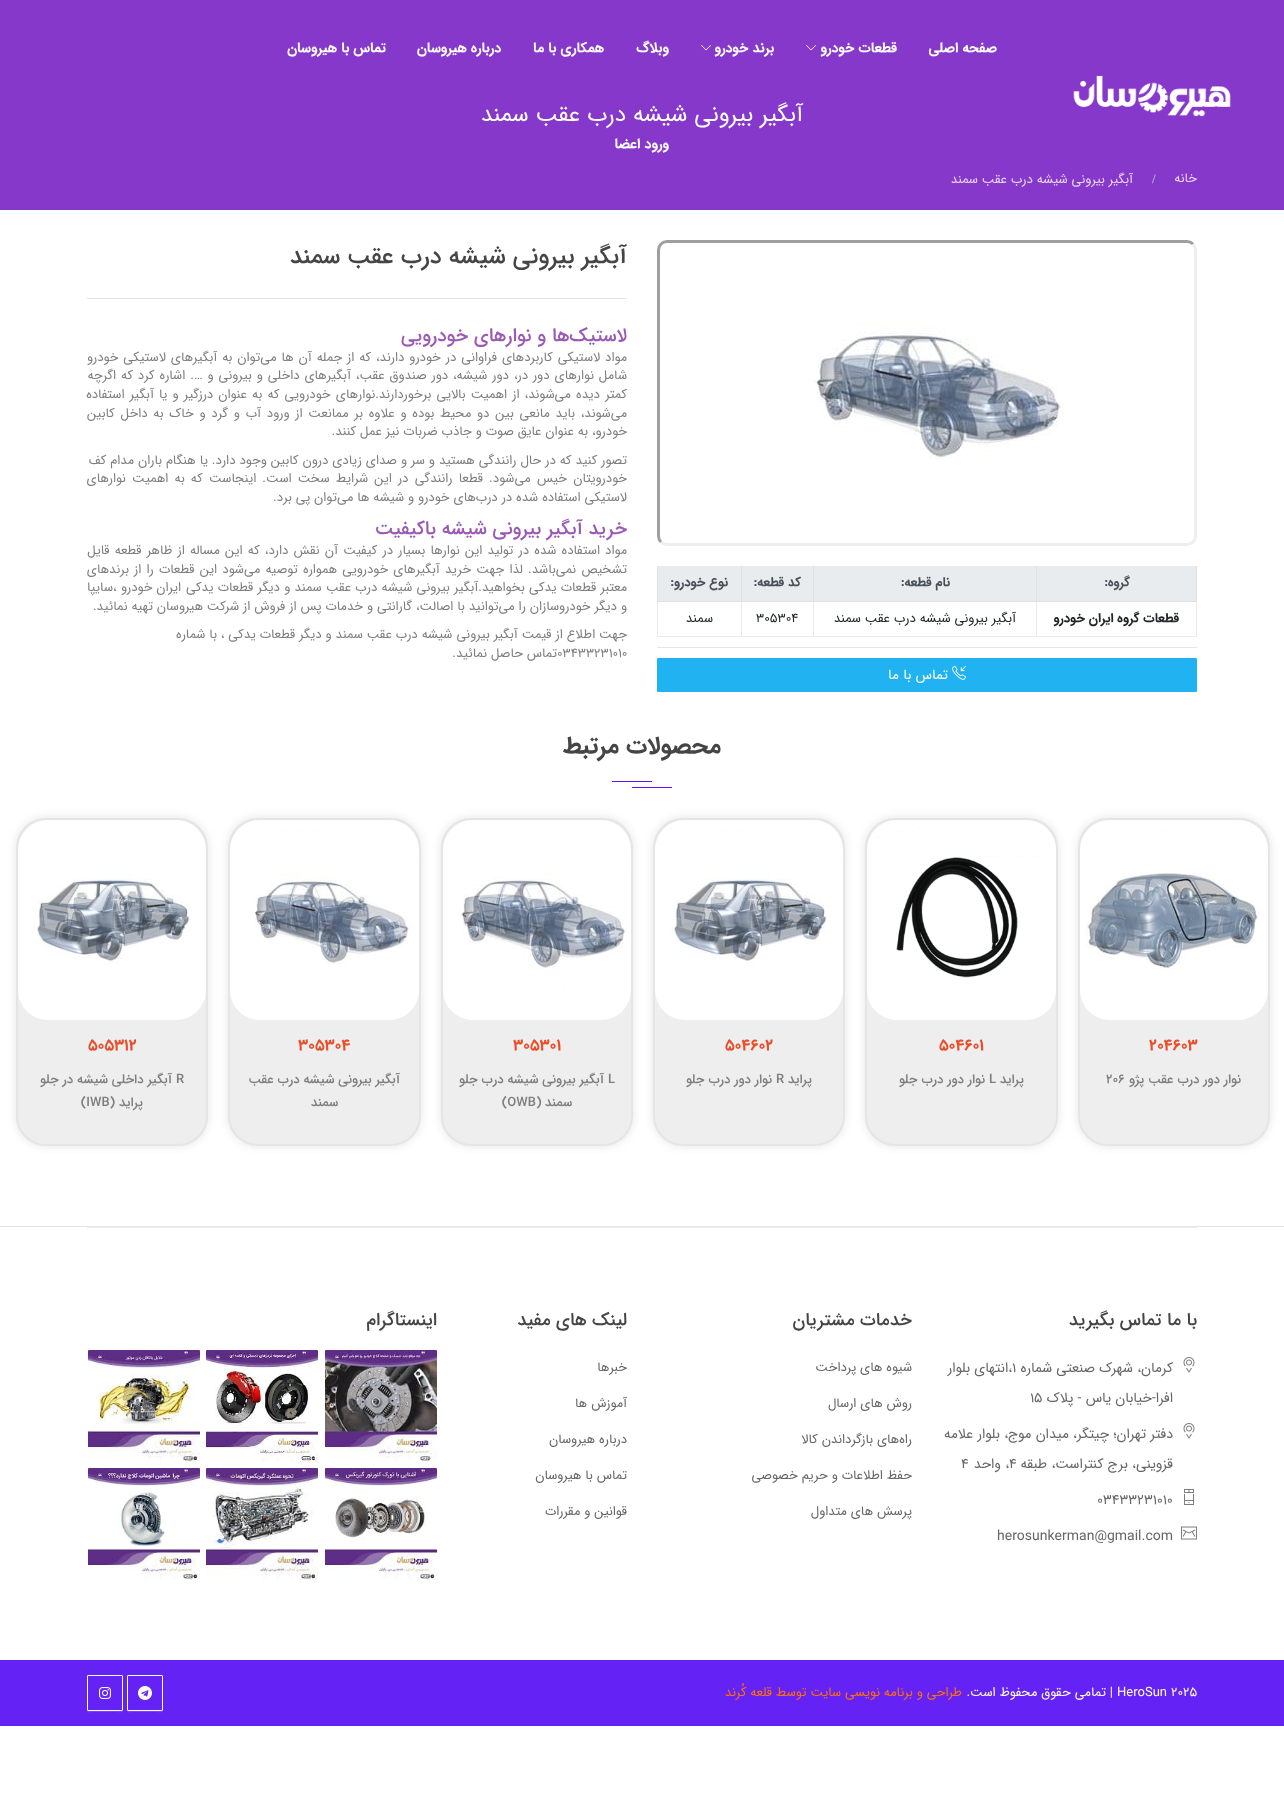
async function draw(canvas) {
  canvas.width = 1284
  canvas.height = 1819
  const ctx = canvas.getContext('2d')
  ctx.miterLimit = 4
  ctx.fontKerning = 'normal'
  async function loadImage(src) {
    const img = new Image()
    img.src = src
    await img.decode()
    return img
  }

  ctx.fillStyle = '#fff'
  ctx.fillRect(0, 0, 1284, 1819)
  ctx.fillStyle = '#8638cb'
  ctx.fillRect(0, 0, 1284, 210)
  ctx.drawImage(await loadImage('image0.png'), 1073, 75, 158, 42)
  ctx.direction = 'rtl'
  ctx.font = 'bold 14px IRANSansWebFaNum'
  ctx.fillStyle = '#fff'
  ctx.fillText('صفحه اصلی', 997, 52)
  ctx.fillText('قطعات خودرو', 897, 52)
  ctx.drawImage(await loadImage('image1.png'), 806, 45, 10, 6)
  ctx.fillText('برند خودرو', 774, 52)
  ctx.drawImage(await loadImage('image1.png'), 701, 45, 10, 6)
  ctx.fillText('وبلاگ', 669, 52)
  ctx.fillText('همکاری با ما', 604, 52)
  ctx.fillText('درباره هیروسان', 501, 52)
  ctx.fillText('تماس با هیروسان', 386, 52)
  ctx.fillText('ورود اعضا', 669, 148)
  ctx.font = '23px IRANSansWebFaNum'
  ctx.fillText('آبگیر بیرونی شيشه درب عقب سمند', 803, 121)
  ctx.font = '13px IRANSansWebFaNum'
  ctx.fillStyle = '#e7d7f5'
  ctx.fillText('خانه', 1197, 182)
  ctx.direction = 'ltr'
  ctx.font = 'bold 13px Liberation Serif'
  ctx.fillStyle = '#beaecc'
  ctx.fillText('/', 1152, 183)
  ctx.direction = 'rtl'
  ctx.font = '13px IRANSansWebFaNum'
  ctx.fillStyle = '#e7d7f5'
  ctx.fillText('آبگیر بیرونی شيشه درب عقب سمند', 1133, 183)
  ctx.beginPath()
  ctx.moveTo(1193, 244)
  ctx.bezierCurveTo(1194.5, 245.5, 1195.5, 247.5, 1195.5, 250)
  ctx.lineTo(1195.5, 536)
  ctx.bezierCurveTo(1195.5, 538.5, 1194.5, 540.5, 1193, 542)
  ctx.bezierCurveTo(1191.5, 543.5, 1189.5, 544.5, 1187, 544.5)
  ctx.lineTo(667, 544.5)
  ctx.bezierCurveTo(664.5, 544.5, 662.5, 543.5, 661, 542)
  ctx.strokeStyle = '#eee'
  ctx.lineWidth = 3
  ctx.stroke()
  ctx.beginPath()
  ctx.moveTo(661, 542)
  ctx.bezierCurveTo(659.5, 540.5, 658.5, 538.5, 658.5, 536)
  ctx.lineTo(658.5, 250)
  ctx.bezierCurveTo(658.5, 247.5, 659.5, 245.5, 661, 244)
  ctx.bezierCurveTo(662.5, 242.5, 664.5, 241.5, 667, 241.5)
  ctx.lineTo(1187, 241.5)
  ctx.bezierCurveTo(1189.5, 241.5, 1191.5, 242.5, 1193, 244)
  ctx.strokeStyle = '#9f9f9f'
  ctx.stroke()
  ctx.drawImage(await loadImage('image2.png'), 809, 323, 256, 136)
  ctx.fillStyle = '#e9ecef'
  ctx.fillRect(1037, 566, 159, 35)
  ctx.fillStyle = '#ebebeb'
  ctx.fillRect(1196, 601, 1, 36)
  ctx.fillStyle = '#dee2e6'
  ctx.fillRect(1196, 566, 1, 36)
  ctx.fillStyle = '#ebebeb'
  ctx.fillRect(1036, 601, 1, 36)
  ctx.fillStyle = '#dee2e6'
  ctx.fillRect(1036, 566, 1, 36)
  ctx.fillStyle = '#ebebeb'
  ctx.fillRect(813, 601, 1, 36)
  ctx.fillStyle = '#dee2e6'
  ctx.fillRect(813, 566, 1, 36)
  ctx.fillStyle = '#ebebeb'
  ctx.fillRect(741, 601, 1, 36)
  ctx.fillStyle = '#dee2e6'
  ctx.fillRect(741, 566, 1, 36)
  ctx.fillStyle = '#ebebeb'
  ctx.fillRect(657, 636, 85, 1)
  ctx.fillRect(657, 601, 1, 36)
  ctx.fillStyle = '#dee2e6'
  ctx.fillRect(657, 601, 85, 1)
  ctx.fillRect(741, 601, 73, 1)
  ctx.fillRect(813, 601, 224, 1)
  ctx.fillRect(1036, 601, 161, 1)
  ctx.font = 'bold 13px IRANSansWebFaNum'
  ctx.fillStyle = '#495057'
  ctx.fillText('گروه:', 1130, 586)
  ctx.fillStyle = '#e9ecef'
  ctx.fillRect(814, 566, 222, 35)
  ctx.fillStyle = '#495057'
  ctx.fillText('نام قطعه:', 950, 586)
  ctx.fillStyle = '#e9ecef'
  ctx.fillRect(742, 566, 71, 35)
  ctx.fillStyle = '#495057'
  ctx.fillText('کد قطعه:', 801, 586)
  ctx.fillStyle = '#e9ecef'
  ctx.fillRect(658, 566, 83, 35)
  ctx.fillStyle = '#dee2e6'
  ctx.fillRect(657, 566, 1, 36)
  ctx.fillStyle = '#495057'
  ctx.fillText('نوع خودرو:', 728, 586)
  ctx.fillStyle = '#ebebeb'
  ctx.fillRect(741, 636, 73, 1)
  ctx.fillRect(813, 636, 224, 1)
  ctx.fillRect(1036, 636, 161, 1)
  ctx.fillStyle = '#212529'
  ctx.fillText('قطعات گروه ایران خودرو', 1179, 622)
  ctx.font = '13px IRANSansWebFaNum'
  ctx.fillText('آبگیر بیرونی شيشه درب عقب سمند', 1016, 622)
  ctx.direction = 'ltr'
  ctx.fillText('305304', 756, 622)
  ctx.direction = 'rtl'
  ctx.fillText('سمند', 713, 622)
  ctx.fillStyle = '#e6e6e6'
  ctx.fillRect(657, 647, 540, 1)
  ctx.fillStyle = '#21b3f1'
  ctx.beginPath()
  ctx.roundRect(657, 658, 540, 34, 1)
  ctx.fill()
  ctx.drawImage(await loadImage('image3.png'), 952, 665, 14, 15)
  ctx.font = '14px IRANSansWebFaNum'
  ctx.fillStyle = '#fff'
  ctx.fillText('تماس با ما', 948, 679)
  ctx.font = '500 24px IRANSansWebFaNum'
  ctx.fillStyle = '#454545'
  ctx.fillText('آبگیر بیرونی شيشه درب عقب سمند', 627, 263)
  ctx.fillStyle = '#e6e6e6'
  ctx.fillRect(87, 298, 540, 1)
  ctx.font = '500 19px IRANSansWebFaNum'
  ctx.fillStyle = '#9b59b6'
  ctx.fillText('لاستیک‌ها و نوارهای خودرویی', 627, 341)
  ctx.wordSpacing = '1px'
  ctx.font = '13px IRANSansWebFaNum'
  ctx.fillStyle = '#7e7e7e'
  ctx.fillText('مواد لاستیکی کاربردهای فراوانی در خودرو دارند، که از جمله آن ها می‌توان به آبگیرهای لاستیکی خودرو', 627, 361)
  ctx.fillText('شامل نوارهای دور در، دور شیشه، دور صندوق عقب، آبگیرهای داخلی و بیرونی و …. اشاره کرد که اگرچه', 627, 379)
  ctx.wordSpacing = '1.25px'
  ctx.fillText('کمتر دیده می‌شوند، از اهمیت بالایی برخوردارند.نوارهای خودرویی که به عنوان درزگیر و یا آبگیر استفاده', 627, 398)
  ctx.wordSpacing = '1.8px'
  ctx.fillText('می‌شوند، باید مانعی بین دو محیط بوده و علاوه بر ممانعت از ورود آب و گرد و خاک به داخل کابین', 627, 417)
  ctx.wordSpacing = '0px'
  ctx.fillText('خودرو، به عنوان عایق صوت و جاذب ضربات نیز عمل کنند.', 627, 435)
  ctx.fillText('تصور کنید که در حال رانندگی هستید و سر و صدای زیادی درون کابین وجود دارد. یا هنگام باران مدام کف', 627, 464)
  ctx.wordSpacing = '2.25px'
  ctx.fillText('خودرویتان خیس می‌شود. قطعا رانندگی در این شرایط سخت است. اینجاست که به اهمیت نوارهای', 627, 482)
  ctx.wordSpacing = '0px'
  ctx.fillText('لاستیکی استفاده شده در درب‌های خودرو و شیشه ها می‌توان پی برد.', 627, 501)
  ctx.font = '500 19px IRANSansWebFaNum'
  ctx.fillStyle = '#9b59b6'
  ctx.fillText('خرید آبگیر بیرونی شیشه باکیفیت', 627, 534)
  ctx.wordSpacing = '1.25px'
  ctx.font = '13px IRANSansWebFaNum'
  ctx.fillStyle = '#7e7e7e'
  ctx.fillText('مواد استفاده شده در تولید این نوارها بسیار در کیفیت آن نقش دارد، که این مساله از ظاهر قطعه قایل', 627, 554)
  ctx.fillText('تشخیص نمی‌باشد. لذا جهت خرید آبگیرهای خودرویی همواره توصیه می‌شود این قطعات را از برندهای', 627, 573)
  ctx.wordSpacing = '0.3px'
  ctx.fillText('معتبر قطعات یدکی بخواهید.آبگیر بیرونی شيشه درب عقب سمند و دیگر قطعات یدکی', 627, 591)
  ctx.wordSpacing = '0px'
  ctx.fillText('ایران خودرو', 181, 591)
  ctx.direction = 'ltr'
  ctx.fillText('،', 113, 591)
  ctx.direction = 'rtl'
  ctx.fillText('سایپا', 113, 591)
  ctx.fillText('و دیگر خودروسازان را می‌توانید با اصالت، گارانتی و خدمات پس از فروش از شرکت', 627, 610)
  ctx.fillText('هیروسان', 203, 610)
  ctx.fillText('تهیه نمائید.', 153, 610)
  ctx.fillText('جهت اطلاع از قیمت آبگیر بیرونی شیشه درب عقب سمند و دیگر قطعات یدکی ، با شماره', 627, 638)
  ctx.direction = 'ltr'
  ctx.fillText('03433231010', 557, 657)
  ctx.direction = 'rtl'
  ctx.fillText('تماس حاصل نمائید.', 557, 657)
  ctx.font = 'bold 24px IRANSansWebFaNum'
  ctx.fillStyle = '#454545'
  ctx.fillText('محصولات مرتبط', 721, 753)
  ctx.fillStyle = '#6610f2'
  ctx.fillRect(612, 781, 40, 1)
  ctx.fillRect(632, 787, 40, 1)
  ctx.fillStyle = '#0000001a'
  ctx.filter = 'blur(5px)'
  ctx.beginPath()
  ctx.roundRect(1078, 818, 192, 328, 30)
  ctx.fill()
  ctx.filter = 'none'
  ctx.fillStyle = '#eee'
  ctx.beginPath()
  ctx.roundRect(1079, 819, 190, 326, 29)
  ctx.fill()
  ctx.strokeStyle = '#e5e5e5'
  ctx.lineWidth = 2
  ctx.stroke()
  ctx.drawImage(await loadImage('image4.png'), 1080, 820, 188, 200)
  ctx.direction = 'ltr'
  ctx.font = 'bold 16px IRANSansWebFaNum'
  ctx.fillStyle = '#ea4d2a'
  ctx.fillText('204603', 1149, 1050)
  ctx.direction = 'rtl'
  ctx.font = '500 13px IRANSansWebFaNum'
  ctx.fillStyle = '#7e7e7e'
  ctx.fillText('نوار دور درب عقب پژو', 1241, 1083)
  ctx.direction = 'ltr'
  ctx.fillText('206', 1106, 1083)
  ctx.fillStyle = '#0000001a'
  ctx.filter = 'blur(5px)'
  ctx.beginPath()
  ctx.roundRect(865, 818, 193, 328, 30)
  ctx.fill()
  ctx.filter = 'none'
  ctx.fillStyle = '#eee'
  ctx.beginPath()
  ctx.roundRect(866, 819, 191, 326, 29)
  ctx.fill()
  ctx.stroke()
  ctx.drawImage(await loadImage('image5.png'), 867, 820, 189, 200)
  ctx.font = 'bold 16px IRANSansWebFaNum'
  ctx.fillStyle = '#ea4d2a'
  ctx.fillText('504601', 939, 1050)
  ctx.direction = 'rtl'
  ctx.font = '500 13px IRANSansWebFaNum'
  ctx.fillStyle = '#7e7e7e'
  ctx.fillText('پراید', 1024, 1083)
  ctx.direction = 'ltr'
  ctx.fillText('L', 989, 1083)
  ctx.direction = 'rtl'
  ctx.fillText('نوار دور درب جلو', 985, 1083)
  ctx.fillStyle = '#0000001a'
  ctx.filter = 'blur(5px)'
  ctx.beginPath()
  ctx.roundRect(653, 818, 192, 328, 30)
  ctx.fill()
  ctx.filter = 'none'
  ctx.fillStyle = '#eee'
  ctx.beginPath()
  ctx.roundRect(654, 819, 190, 326, 29)
  ctx.fill()
  ctx.stroke()
  ctx.drawImage(await loadImage('image6.png'), 655, 820, 188, 200)
  ctx.direction = 'ltr'
  ctx.font = 'bold 16px IRANSansWebFaNum'
  ctx.fillStyle = '#ea4d2a'
  ctx.fillText('504602', 725, 1050)
  ctx.direction = 'rtl'
  ctx.font = '500 13px IRANSansWebFaNum'
  ctx.fillStyle = '#7e7e7e'
  ctx.fillText('پراید', 812, 1083)
  ctx.direction = 'ltr'
  ctx.fillText('R', 776, 1083)
  ctx.direction = 'rtl'
  ctx.fillText('نوار دور درب جلو', 772, 1083)
  ctx.fillStyle = '#0000001a'
  ctx.filter = 'blur(5px)'
  ctx.beginPath()
  ctx.roundRect(441, 818, 192, 328, 30)
  ctx.fill()
  ctx.filter = 'none'
  ctx.fillStyle = '#eee'
  ctx.beginPath()
  ctx.roundRect(442, 819, 190, 326, 29)
  ctx.fill()
  ctx.stroke()
  ctx.drawImage(await loadImage('image7.png'), 443, 820, 188, 200)
  ctx.direction = 'ltr'
  ctx.font = 'bold 16px IRANSansWebFaNum'
  ctx.fillStyle = '#ea4d2a'
  ctx.fillText('305301', 513, 1050)
  ctx.font = '500 13px IRANSansWebFaNum'
  ctx.fillStyle = '#7e7e7e'
  ctx.fillText('L', 608, 1083)
  ctx.direction = 'rtl'
  ctx.fillText('آبگیر بیرونی شيشه درب جلو', 604, 1083)
  ctx.fillText('سمند', 572, 1106)
  ctx.direction = 'ltr'
  ctx.fillText('(OWB)', 502, 1106)
  ctx.fillStyle = '#0000001a'
  ctx.filter = 'blur(5px)'
  ctx.beginPath()
  ctx.roundRect(228, 818, 193, 328, 30)
  ctx.fill()
  ctx.filter = 'none'
  ctx.fillStyle = '#eee'
  ctx.beginPath()
  ctx.roundRect(229, 819, 191, 326, 29)
  ctx.fill()
  ctx.stroke()
  ctx.drawImage(await loadImage('image8.png'), 230, 820, 189, 200)
  ctx.font = 'bold 16px IRANSansWebFaNum'
  ctx.fillStyle = '#ea4d2a'
  ctx.fillText('305304', 298, 1050)
  ctx.direction = 'rtl'
  ctx.font = '500 13px IRANSansWebFaNum'
  ctx.fillStyle = '#7e7e7e'
  ctx.fillText('آبگیر بیرونی شيشه درب عقب', 400, 1083)
  ctx.fillText('سمند', 338, 1106)
  ctx.fillStyle = '#0000001a'
  ctx.filter = 'blur(5px)'
  ctx.beginPath()
  ctx.roundRect(16, 818, 192, 328, 30)
  ctx.fill()
  ctx.filter = 'none'
  ctx.fillStyle = '#eee'
  ctx.beginPath()
  ctx.roundRect(17, 819, 190, 326, 29)
  ctx.fill()
  ctx.stroke()
  ctx.drawImage(await loadImage('image6.png'), 18, 820, 188, 200)
  ctx.direction = 'ltr'
  ctx.font = 'bold 16px IRANSansWebFaNum'
  ctx.fillStyle = '#ea4d2a'
  ctx.fillText('505312', 88, 1050)
  ctx.font = '500 13px IRANSansWebFaNum'
  ctx.fillStyle = '#7e7e7e'
  ctx.fillText('R', 176, 1083)
  ctx.direction = 'rtl'
  ctx.fillText('آبگیر داخلی شيشه در جلو', 172, 1083)
  ctx.fillText('پراید', 143, 1106)
  ctx.direction = 'ltr'
  ctx.fillText('(IWB)', 81, 1106)
  ctx.fillStyle = '#e5e5e5'
  ctx.fillRect(0, 1226, 1284, 1)
  ctx.fillStyle = '#ebebeb'
  ctx.fillRect(87, 1227, 1110, 1)
  ctx.direction = 'rtl'
  ctx.font = '500 18px IRANSansWebFaNum'
  ctx.fillStyle = '#454545'
  ctx.fillText('با ما تماس بگیرید', 1197, 1325)
  ctx.drawImage(await loadImage('image9.png'), 1183, 1357, 12, 16)
  ctx.font = '14px IRANSansWebFaNum'
  ctx.fillStyle = '#666'
  ctx.fillText('کرمان، شهرک صنعتی شماره', 1173, 1372)
  ctx.direction = 'ltr'
  ctx.fillText('۱', 1012, 1372)
  ctx.direction = 'rtl'
  ctx.fillText('،انتهای بلوار', 1012, 1372)
  ctx.fillText('افرا-خیابان یاس - پلاک', 1173, 1402)
  ctx.direction = 'ltr'
  ctx.fillText('15', 1030, 1402)
  ctx.drawImage(await loadImage('image9.png'), 1183, 1423, 12, 16)
  ctx.direction = 'rtl'
  ctx.fillText('دفتر تهران؛ چیتگر، میدان موج، بلوار علامه', 1173, 1438)
  ctx.fillText('قزوینی، برج کنتراست، طبقه', 1173, 1468)
  ctx.direction = 'ltr'
  ctx.fillText('۴', 1009, 1468)
  ctx.direction = 'rtl'
  ctx.fillText('، واحد', 1009, 1468)
  ctx.direction = 'ltr'
  ctx.fillText('۴', 961, 1468)
  ctx.drawImage(await loadImage('image10.png'), 1184, 1489, 10, 16)
  ctx.fillText('03433231010', 1097, 1504)
  ctx.drawImage(await loadImage('image11.png'), 1181, 1526, 16, 14)
  ctx.fillText('herosunkerman@gmail.com', 997, 1540)
  ctx.direction = 'rtl'
  ctx.font = '500 18px IRANSansWebFaNum'
  ctx.fillStyle = '#454545'
  ctx.fillText('خدمات مشتریان', 912, 1325)
  ctx.font = '13px IRANSansWebFaNum'
  ctx.fillStyle = '#666'
  ctx.fillText('شیوه های پرداخت', 912, 1371)
  ctx.fillText('روش های ارسال', 912, 1407)
  ctx.fillText('راه‌های بازگرداندن کالا', 912, 1443)
  ctx.fillText('حفظ اطلاعات و حریم خصوصی', 912, 1479)
  ctx.fillText('پرسش های متداول', 912, 1515)
  ctx.font = '500 18px IRANSansWebFaNum'
  ctx.fillStyle = '#454545'
  ctx.fillText('لینک های مفید', 627, 1325)
  ctx.font = '13px IRANSansWebFaNum'
  ctx.fillStyle = '#666'
  ctx.fillText('خبرها', 627, 1371)
  ctx.fillText('آموزش ها', 627, 1407)
  ctx.fillText('درباره هیروسان', 627, 1443)
  ctx.fillText('تماس با هیروسان', 627, 1479)
  ctx.fillText('قوانین و مقررات', 627, 1515)
  ctx.font = '500 18px IRANSansWebFaNum'
  ctx.fillStyle = '#454545'
  ctx.fillText('اینستاگرام', 437, 1325)
  ctx.drawImage(await loadImage('image12.png'), 325, 1350, 112, 112)
  ctx.drawImage(await loadImage('image13.png'), 206, 1350, 112, 112)
  ctx.drawImage(await loadImage('image14.png'), 88, 1350, 112, 112)
  ctx.drawImage(await loadImage('image15.png'), 325, 1468, 112, 112)
  ctx.drawImage(await loadImage('image16.png'), 206, 1468, 112, 112)
  ctx.drawImage(await loadImage('image17.png'), 88, 1468, 112, 112)
  ctx.fillStyle = '#6522f4'
  ctx.fillRect(0, 1660, 1284, 66)
  ctx.direction = 'ltr'
  ctx.font = '13px IRANSansWebFaNum'
  ctx.fillStyle = '#fff'
  ctx.fillText('HeroSun 2025', 1117, 1696)
  ctx.direction = 'rtl'
  ctx.fillText('| تمامی حقوق محفوظ است.', 1113, 1696)
  ctx.fillStyle = '#fd710b'
  ctx.fillText('طراحی و برنامه نویسی سایت توسط قلعه کُرند', 962, 1696)
  ctx.fillStyle = '#7c43f6'
  ctx.beginPath()
  ctx.moveTo(127, 1710)
  ctx.bezierCurveTo(127, 1713.5, 130, 1712, 133.5, 1712)
  ctx.lineTo(156.5, 1712)
  ctx.bezierCurveTo(160, 1712, 163, 1713.5, 163, 1710)
  ctx.bezierCurveTo(163, 1710.5, 162.5, 1711, 162, 1711)
  ctx.lineTo(127.5, 1711)
  ctx.closePath()
  ctx.fill()
  ctx.beginPath()
  ctx.roundRect(127.5, 1675.5, 35, 35, 0.5)
  ctx.strokeStyle = '#fff'
  ctx.lineWidth = 1
  ctx.stroke()
  ctx.drawImage(await loadImage('image18.png'), 138, 1686, 14, 14)
  ctx.beginPath()
  ctx.moveTo(87, 1710)
  ctx.bezierCurveTo(87, 1713.5, 90, 1712, 93.5, 1712)
  ctx.lineTo(116.5, 1712)
  ctx.bezierCurveTo(120, 1712, 123, 1713.5, 123, 1710)
  ctx.bezierCurveTo(123, 1710.5, 122.5, 1711, 122, 1711)
  ctx.lineTo(87.5, 1711)
  ctx.closePath()
  ctx.fill()
  ctx.beginPath()
  ctx.roundRect(87.5, 1675.5, 35, 35, 0.5)
  ctx.stroke()
  ctx.drawImage(await loadImage('image19.png'), 99, 1687, 12, 12)
}

draw(document.querySelector('canvas'))
